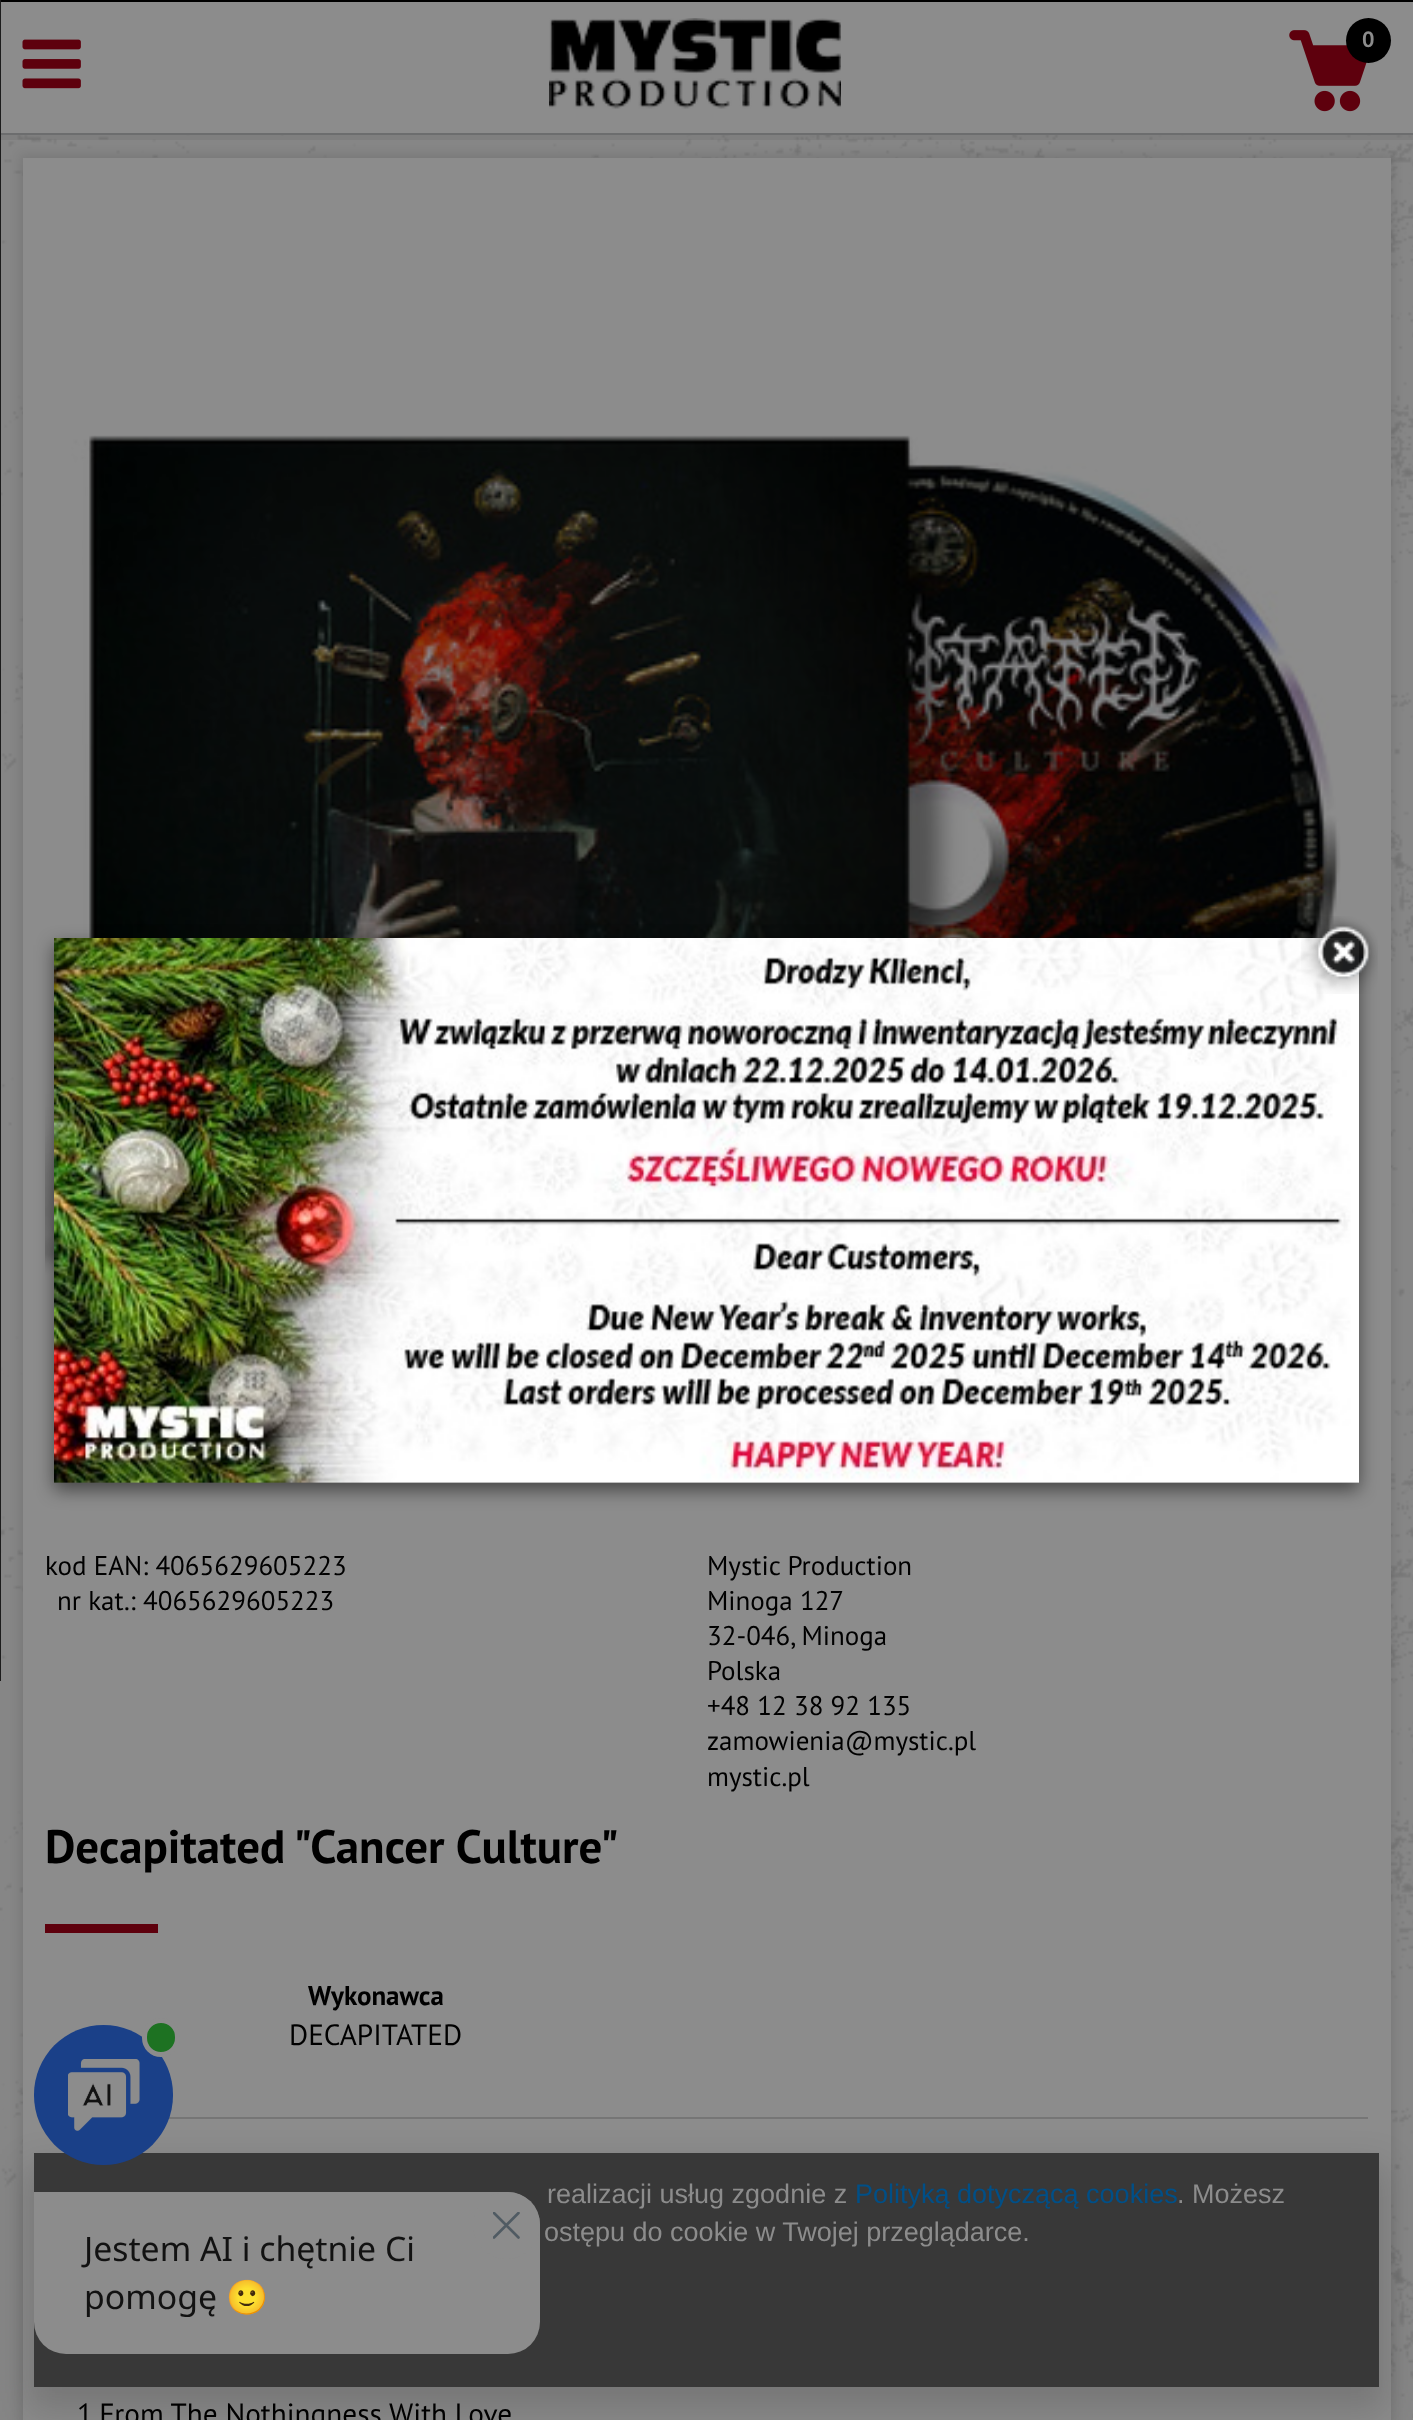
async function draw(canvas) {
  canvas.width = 1413
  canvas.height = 2420
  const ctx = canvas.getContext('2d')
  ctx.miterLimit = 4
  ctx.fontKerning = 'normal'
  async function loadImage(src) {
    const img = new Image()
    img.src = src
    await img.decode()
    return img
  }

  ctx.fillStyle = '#868686'
  ctx.fillRect(0, 0, 1413, 2420)
  ctx.drawImage(await loadImage('image0.png'), 0, 135, 1413, 2283)
  ctx.fillStyle = '#0000001a'
  ctx.filter = 'blur(5.5px)'
  ctx.beginPath()
  ctx.rect(20, 155, 1373, 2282)
  ctx.fill()
  ctx.filter = 'none'
  ctx.fillStyle = '#0000000d'
  ctx.fillRect(0, 135, 1413, 5)
  ctx.fillStyle = '#8c8c8c'
  ctx.fillRect(1, 2, 1412, 131)
  ctx.fillStyle = '#6c6d6e'
  ctx.fillRect(0, 133, 1413, 2)
  ctx.fillStyle = '#000'
  ctx.fillRect(0, 0, 1413, 2)
  ctx.drawImage(await loadImage('image1.png'), 22, 39, 59, 50)
  ctx.drawImage(await loadImage('image2.png'), 549, 18, 292, 91)
  ctx.drawImage(await loadImage('image3.png'), 1289, 30, 78, 82)
  ctx.beginPath()
  ctx.arc(1368.5, 40.5, 22.5, 0, 2 * Math.PI)
  ctx.fill()
  ctx.font = 'bold 22px PT Sans'
  ctx.fillStyle = '#8c8c8c'
  ctx.fillText('0', 1362, 47)
  ctx.fillStyle = '#1c1c1c'
  ctx.fillRect(0, 0, 1, 1681)
  ctx.fillStyle = '#8c8c8c'
  ctx.fillRect(23, 158, 1368, 2262)
  ctx.drawImage(await loadImage('image4.png'), 45, 435, 1296, 847)
  ctx.font = '27px PT Sans'
  ctx.fillStyle = '#000'
  ctx.fillText('kod EAN: 4065629605223', 45, 1575)
  ctx.fillText('nr kat.: 4065629605223', 57, 1610)
  ctx.fillText('Mystic Production', 707, 1575)
  ctx.fillText('Minoga 127', 707, 1610)
  ctx.fillText('32-046, Minoga', 707, 1645)
  ctx.fillText('Polska', 707, 1680)
  ctx.fillText('+48 12 38 92 135', 707, 1715)
  ctx.fillText('zamowienia@mystic.pl', 707, 1750)
  ctx.fillText('mystic.pl', 707, 1786)
  ctx.font = 'bold 46.9px PT Sans'
  ctx.fillText('Decapitated "Cancer Culture"', 45, 1863)
  ctx.fillStyle = '#5e000d'
  ctx.fillRect(45, 1924, 113, 9)
  ctx.fillStyle = '#767676'
  ctx.fillRect(168, 2117, 1200, 2)
  ctx.font = 'bold 27px PT Sans'
  ctx.fillStyle = '#000'
  ctx.fillText('Wykonawca', 308, 2005)
  ctx.font = '29.25px PT Sans'
  ctx.fillText('DECAPITATED', 289, 2045)
  ctx.fillText('1.From The Nothingness With Love', 77, 2424)
  ctx.fillStyle = '#00000080'
  ctx.filter = 'blur(9px)'
  ctx.beginPath()
  ctx.rect(54, 945, 1305, 545)
  ctx.fill()
  ctx.filter = 'none'
  ctx.drawImage(await loadImage('image5.png'), 54, 938, 1305, 545)
  ctx.drawImage(await loadImage('image6.png'), 1301, 916, 77, 78)
  ctx.save()
  ctx.beginPath()
  ctx.moveTo(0, 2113)
  ctx.lineTo(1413, 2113)
  ctx.lineTo(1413, 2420)
  ctx.lineTo(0, 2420)
  ctx.closePath()
  ctx.moveTo(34, 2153)
  ctx.lineTo(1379, 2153)
  ctx.lineTo(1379, 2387)
  ctx.lineTo(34, 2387)
  ctx.closePath()
  ctx.clip('evenodd')
  ctx.fillStyle = '#00000026'
  ctx.filter = 'blur(17px)'
  ctx.beginPath()
  ctx.rect(27, 2165, 1359, 247)
  ctx.fill()
  ctx.filter = 'none'
  ctx.restore()
  ctx.fillStyle = '#00000099'
  ctx.fillRect(34, 2153, 1345, 234)
  ctx.font = '27px Liberation Sans'
  ctx.fillStyle = '#8c8c8c'
  ctx.fillText('realizacji usług zgodnie z', 547, 2203)
  ctx.fillStyle = '#004f87'
  ctx.fillText('Polityką dotyczącą cookies', 855, 2203)
  ctx.fillStyle = '#8c8c8c'
  ctx.fillText('. Możesz', 1177, 2203)
  ctx.fillText('ostępu do cookie w Twojej przeglądarce.', 544, 2241)
  ctx.fillStyle = '#1a4088'
  ctx.beginPath()
  ctx.roundRect(34, 2025, 139, 140, 69.5)
  ctx.fill()
  ctx.fillStyle = '#1d7222'
  ctx.beginPath()
  ctx.roundRect(144.5, 2020.5, 33, 34, 16.5)
  ctx.fill()
  ctx.strokeStyle = '#8c8c8c'
  ctx.lineWidth = 5
  ctx.stroke()
  ctx.drawImage(await loadImage('image7.png'), 68, 2059, 72, 72)
  ctx.fillStyle = '#8c8c8c'
  ctx.beginPath()
  ctx.roundRect(34, 2192, 506, 162, [0, 32, 32, 32])
  ctx.fill()
  ctx.beginPath()
  ctx.arc(506.5, 2225.5, 33.5, 0, 2 * Math.PI)
  ctx.fill()
  ctx.save()
  ctx.beginPath()
  ctx.rect(493, 2212, 27, 27)
  ctx.clip()
  ctx.beginPath()
  ctx.moveTo(518.5, 2213)
  ctx.lineTo(494, 2237.5)
  ctx.moveTo(494, 2213)
  ctx.lineTo(518.5, 2237.5)
  ctx.strokeStyle = '#505b63'
  ctx.lineWidth = 2.6
  ctx.lineCap = 'round'
  ctx.lineJoin = 'round'
  ctx.stroke()
  ctx.restore()
  ctx.font = '33.75px Noto Sans'
  ctx.fillStyle = '#121212'
  ctx.fillText('Jestem AI i chętnie Ci', 84, 2261)
  ctx.fillText('pomogę', 84, 2309)
  ctx.font = '33.75px Noto Color Emoji'
  ctx.fillText('🙂', 226, 2309)
}

draw(document.querySelector('canvas'))
